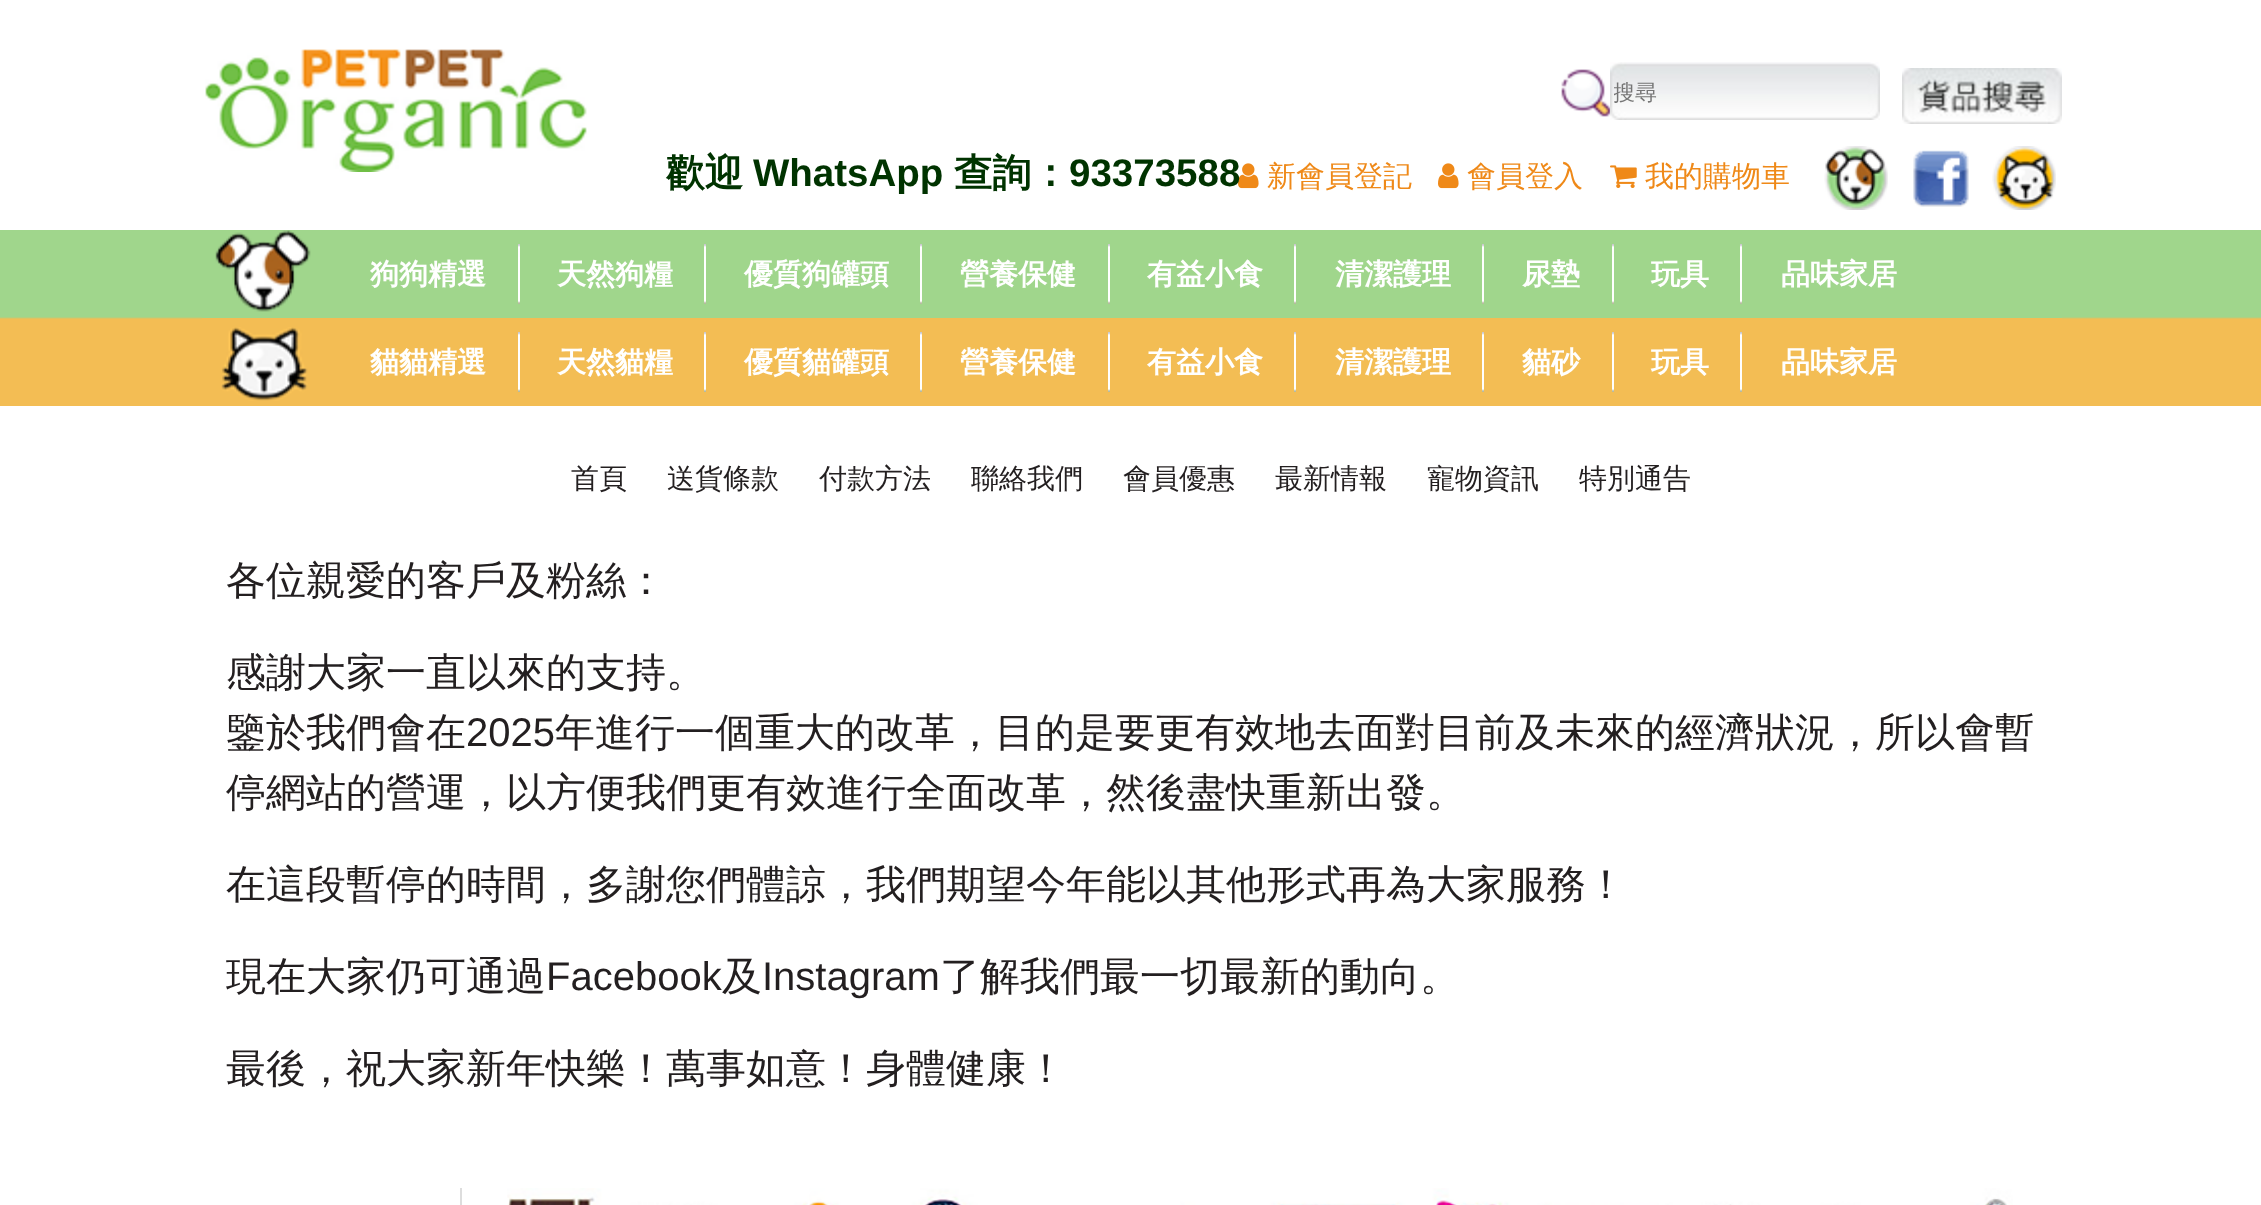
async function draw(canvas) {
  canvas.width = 2261
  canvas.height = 1205
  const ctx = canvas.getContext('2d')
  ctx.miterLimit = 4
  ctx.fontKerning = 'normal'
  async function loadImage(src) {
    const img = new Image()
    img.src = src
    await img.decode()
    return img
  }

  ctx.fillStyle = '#fff'
  ctx.fillRect(0, 0, 2261, 1205)
  ctx.drawImage(await loadImage('image0.png'), 205, 49, 382, 123)
  ctx.drawImage(await loadImage('image1.png'), 1561, 69, 49, 48)
  ctx.drawImage(await loadImage('image2.png'), 1610, 62, 270, 58)
  ctx.save()
  ctx.beginPath()
  ctx.rect(1614, 78, 260, 30)
  ctx.clip()
  ctx.font = '500 22px WenQuanYi Zen Hei'
  ctx.fillStyle = '#757575'
  ctx.fillText('搜尋', 1613, 100)
  ctx.restore()
  ctx.drawImage(await loadImage('image3.png'), 1902, 68, 160, 56)
  ctx.font = 'bold 38.5px WenQuanYi Zen Hei'
  ctx.fillStyle = '#030'
  ctx.fillText('歡迎', 666, 186)
  ctx.font = 'bold 38.5px Liberation Sans'
  ctx.fillText('WhatsApp', 753, 186)
  ctx.font = 'bold 38.5px WenQuanYi Zen Hei'
  ctx.fillText('查詢：', 954, 186)
  ctx.drawImage(await loadImage('image4.png'), 1238, 163, 21, 26)
  ctx.font = 'bold 38.5px Liberation Sans'
  ctx.fillText('93373588', 1069, 186)
  ctx.font = '500 29px WenQuanYi Zen Hei'
  ctx.fillStyle = '#ef8918'
  ctx.fillText('新會員登記', 1267, 186)
  ctx.drawImage(await loadImage('image4.png'), 1438, 163, 21, 26)
  ctx.fillText('會員登入', 1467, 186)
  ctx.drawImage(await loadImage('image5.png'), 1610, 165, 27, 23)
  ctx.fillText('我的購物車', 1645, 186)
  ctx.drawImage(await loadImage('image6.png'), 1824, 146, 64, 64)
  ctx.drawImage(await loadImage('image7.png'), 1913, 150, 56, 57)
  ctx.drawImage(await loadImage('image8.png'), 1992, 146, 64, 64)
  ctx.drawImage(await loadImage('image9.png'), 0, 230, 2261, 176)
  ctx.fillStyle = '#a0d68c'
  ctx.fillRect(202, 317, 1860, 1)
  ctx.drawImage(await loadImage('image10.png'), 215, 230, 96, 82)
  ctx.drawImage(await loadImage('image11.png'), 518, 244, 2, 60)
  ctx.font = 'bold 29px WenQuanYi Zen Hei'
  ctx.fillStyle = '#fff'
  ctx.fillText('狗狗精選', 370, 284)
  ctx.drawImage(await loadImage('image11.png'), 704, 244, 2, 60)
  ctx.fillText('天然狗糧', 557, 284)
  ctx.drawImage(await loadImage('image11.png'), 920, 244, 2, 60)
  ctx.fillText('優質狗罐頭', 744, 284)
  ctx.drawImage(await loadImage('image11.png'), 1108, 244, 2, 60)
  ctx.fillText('營養保健', 960, 284)
  ctx.drawImage(await loadImage('image11.png'), 1294, 244, 2, 60)
  ctx.fillText('有益小食', 1147, 284)
  ctx.drawImage(await loadImage('image11.png'), 1482, 244, 2, 60)
  ctx.fillText('清潔護理', 1335, 284)
  ctx.drawImage(await loadImage('image11.png'), 1612, 244, 2, 60)
  ctx.fillText('尿墊', 1522, 284)
  ctx.drawImage(await loadImage('image11.png'), 1740, 244, 2, 60)
  ctx.fillText('玩具', 1651, 284)
  ctx.fillText('品味家居', 1781, 284)
  ctx.fillStyle = '#f3bd54'
  ctx.fillRect(202, 318, 1860, 1)
  ctx.drawImage(await loadImage('image12.png'), 221, 327, 87, 74)
  ctx.drawImage(await loadImage('image11.png'), 518, 332, 2, 60)
  ctx.fillStyle = '#fff'
  ctx.fillText('貓貓精選', 370, 372)
  ctx.drawImage(await loadImage('image11.png'), 704, 332, 2, 60)
  ctx.fillText('天然貓糧', 557, 372)
  ctx.drawImage(await loadImage('image11.png'), 920, 332, 2, 60)
  ctx.fillText('優質貓罐頭', 744, 372)
  ctx.drawImage(await loadImage('image11.png'), 1108, 332, 2, 60)
  ctx.fillText('營養保健', 960, 372)
  ctx.drawImage(await loadImage('image11.png'), 1294, 332, 2, 60)
  ctx.fillText('有益小食', 1147, 372)
  ctx.drawImage(await loadImage('image11.png'), 1482, 332, 2, 60)
  ctx.fillText('清潔護理', 1335, 372)
  ctx.drawImage(await loadImage('image11.png'), 1612, 332, 2, 60)
  ctx.fillText('貓砂', 1522, 372)
  ctx.drawImage(await loadImage('image11.png'), 1740, 332, 2, 60)
  ctx.fillText('玩具', 1651, 372)
  ctx.fillText('品味家居', 1781, 372)
  ctx.font = '500 28px WenQuanYi Zen Hei'
  ctx.fillStyle = '#231f20'
  ctx.fillText('首頁', 571, 488)
  ctx.fillText('送貨條款', 667, 488)
  ctx.fillText('付款方法', 819, 488)
  ctx.fillText('聯絡我們', 971, 488)
  ctx.fillText('會員優惠', 1123, 488)
  ctx.fillText('最新情報', 1275, 488)
  ctx.fillText('寵物資訊', 1427, 488)
  ctx.fillText('特別通告', 1579, 488)
  ctx.font = '500 40px WenQuanYi Zen Hei'
  ctx.fillText('各位親愛的客戶及粉絲：', 226, 594)
  ctx.fillText('感謝大家一直以來的支持。', 226, 686)
  ctx.fillText('鑒於我們會在', 226, 746)
  ctx.font = '40px Liberation Sans'
  ctx.fillText('2025', 466, 746)
  ctx.font = '500 40px WenQuanYi Zen Hei'
  ctx.fillText('年進行一個重大的改革，目的是要更有效地去面對目前及未來的經濟狀況，所以會暫', 555, 746)
  ctx.fillText('停網站的營運，以方便我們更有效進行全面改革，然後盡快重新出發。', 226, 806)
  ctx.fillText('在這段暫停的時間，多謝您們體諒，我們期望今年能以其他形式再為大家服務！', 226, 898)
  ctx.fillText('現在大家仍可通過', 226, 990)
  ctx.font = '40px Liberation Sans'
  ctx.fillText('Facebook', 546, 990)
  ctx.font = '500 40px WenQuanYi Zen Hei'
  ctx.fillText('及', 722, 990)
  ctx.font = '40px Liberation Sans'
  ctx.fillText('Instagram', 762, 990)
  ctx.font = '500 40px WenQuanYi Zen Hei'
  ctx.fillText('了解我們最一切最新的動向。', 940, 990)
  ctx.fillText('最後，祝大家新年快樂！萬事如意！身體健康！', 226, 1082)
  ctx.fillStyle = '#ddd'
  ctx.fillRect(460, 1188, 2, 17)
  ctx.drawImage(await loadImage('image13.png'), 507, 1188, 1506, 17)
}

draw(document.querySelector('canvas'))
